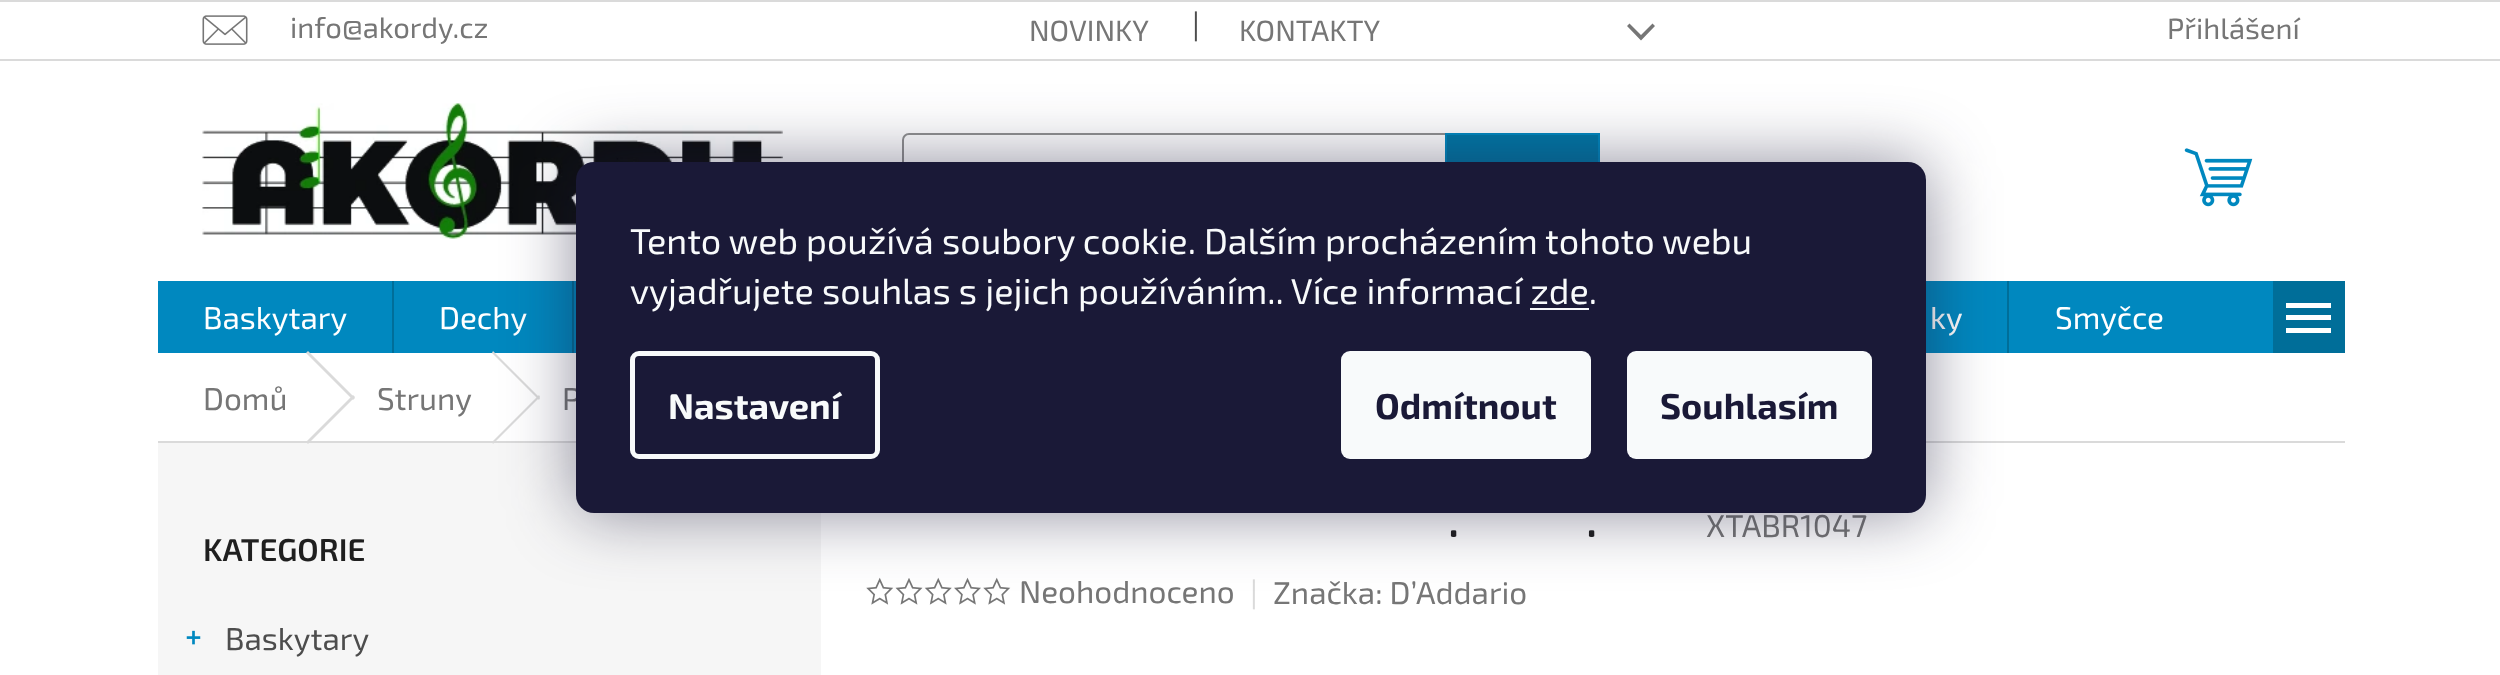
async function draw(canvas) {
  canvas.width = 2500
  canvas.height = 675
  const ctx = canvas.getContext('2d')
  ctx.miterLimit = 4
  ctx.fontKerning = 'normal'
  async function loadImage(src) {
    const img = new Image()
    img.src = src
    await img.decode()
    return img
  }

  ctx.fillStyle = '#fff'
  ctx.fillRect(0, 0, 2500, 675)
  ctx.fillStyle = '#dadada'
  ctx.fillRect(0, 0, 2500, 2)
  ctx.fillRect(0, 59, 2500, 2)
  ctx.drawImage(await loadImage('image0.png'), 202, 15, 46, 30)
  ctx.font = '29.25px "Exo 2"'
  ctx.fillStyle = '#767676'
  ctx.fillText('info@akordy.cz', 290, 38)
  ctx.fillText('NOVINKY', 1029, 41)
  ctx.font = '31.5px "Exo 2"'
  ctx.fillStyle = '#4d4d4d'
  ctx.fillText('|', 1192, 36)
  ctx.font = '29.25px "Exo 2"'
  ctx.fillStyle = '#767676'
  ctx.fillText('KONTAKTY', 1239, 41)
  ctx.beginPath()
  ctx.moveTo(1627, 26)
  ctx.lineTo(1629.5, 23.5)
  ctx.lineTo(1641, 35)
  ctx.lineTo(1652.5, 23.5)
  ctx.lineTo(1655, 26)
  ctx.lineTo(1641, 40.5)
  ctx.closePath()
  ctx.fill()
  ctx.fillText('Přihlášení', 2167, 39)
  ctx.drawImage(await loadImage('image1.png'), 202, 103, 581, 136)
  ctx.beginPath()
  ctx.roundRect(903, 134, 696, 79, 6)
  ctx.strokeStyle = '#919191'
  ctx.lineWidth = 2
  ctx.stroke()
  ctx.fillStyle = '#0077a6'
  ctx.fillRect(1447, 135, 151, 27)
  ctx.strokeStyle = '#0088bf'
  ctx.strokeRect(1446, 134, 153, 79)
  ctx.drawImage(await loadImage('image2.png'), 2184, 148, 69, 59)
  ctx.fillStyle = '#0088bf'
  ctx.fillRect(158, 281, 2115, 72)
  ctx.font = '31.5px "Exo 2"'
  ctx.fillStyle = '#fff'
  ctx.fillText('Baskytary', 203, 329)
  ctx.fillStyle = '#006e99'
  ctx.fillRect(392, 281, 2, 72)
  ctx.fillStyle = '#fff'
  ctx.fillText('Dechy', 439, 329)
  ctx.fillStyle = '#006e99'
  ctx.fillRect(572, 281, 2, 72)
  ctx.fillStyle = '#fff'
  ctx.fillText('ky', 1930, 329)
  ctx.fillStyle = '#006e99'
  ctx.fillRect(2007, 281, 2, 72)
  ctx.fillStyle = '#fff'
  ctx.fillText('Smyčce', 2055, 329)
  ctx.fillStyle = '#006e99'
  ctx.fillRect(2273, 281, 72, 72)
  ctx.fillStyle = '#fff'
  ctx.beginPath()
  ctx.moveTo(2286, 333)
  ctx.lineTo(2331, 333)
  ctx.lineTo(2331, 328)
  ctx.lineTo(2286, 328)
  ctx.closePath()
  ctx.moveTo(2286, 320)
  ctx.lineTo(2331, 320)
  ctx.lineTo(2331, 315)
  ctx.lineTo(2286, 315)
  ctx.closePath()
  ctx.moveTo(2286, 303)
  ctx.lineTo(2286, 308)
  ctx.lineTo(2331, 308)
  ctx.lineTo(2331, 303)
  ctx.closePath()
  ctx.fill()
  ctx.fillStyle = '#dadada'
  ctx.fillRect(158, 441, 2187, 2)
  ctx.fillStyle = '#767676'
  ctx.fillText('Domů', 203, 410)
  ctx.fillStyle = '#dadada'
  ctx.beginPath()
  ctx.moveTo(306, 353)
  ctx.lineTo(308, 351)
  ctx.lineTo(355, 398)
  ctx.lineTo(353, 400)
  ctx.closePath()
  ctx.fill()
  ctx.fillStyle = '#f6f6f6'
  ctx.fillRect(158, 443, 663, 232)
  ctx.fillStyle = '#dadada'
  ctx.beginPath()
  ctx.moveTo(353, 395)
  ctx.lineTo(355, 397)
  ctx.lineTo(308, 444)
  ctx.lineTo(306, 442)
  ctx.closePath()
  ctx.fill()
  ctx.fillStyle = '#767676'
  ctx.fillText('Struny', 377, 410)
  ctx.fillStyle = '#dadada'
  ctx.beginPath()
  ctx.moveTo(492, 353)
  ctx.lineTo(493, 351)
  ctx.lineTo(540, 398)
  ctx.lineTo(539, 400)
  ctx.closePath()
  ctx.fill()
  ctx.beginPath()
  ctx.moveTo(539, 395)
  ctx.lineTo(540, 397)
  ctx.lineTo(493, 444)
  ctx.lineTo(492, 442)
  ctx.closePath()
  ctx.fill()
  ctx.fillStyle = '#767676'
  ctx.fillText('P', 562, 410)
  ctx.font = '600 31.5px "Exo 2"'
  ctx.fillStyle = '#1f1f1f'
  ctx.fillText('KATEGORIE', 203, 561)
  ctx.drawImage(await loadImage('image3.png'), 186, 630, 15, 15)
  ctx.font = '31.5px "Exo 2"'
  ctx.fillStyle = '#4d4d4d'
  ctx.fillText('Baskytary', 225, 650)
  ctx.font = '58px "Exo 2"'
  ctx.fillStyle = '#1f1f1f'
  ctx.fillText('.', 1447, 537)
  ctx.fillText('.', 1585, 537)
  ctx.font = '31.5px "Exo 2"'
  ctx.fillStyle = '#767676'
  ctx.fillText('XTABR1047', 1706, 537)
  ctx.drawImage(await loadImage('image4.png'), 866, 577, 28, 28)
  ctx.drawImage(await loadImage('image5.png'), 895, 578, 28, 27)
  ctx.drawImage(await loadImage('image6.png'), 924, 577, 28, 28)
  ctx.drawImage(await loadImage('image7.png'), 954, 577, 27, 28)
  ctx.drawImage(await loadImage('image4.png'), 983, 577, 28, 28)
  ctx.fillText('Neohodnoceno', 1019, 603)
  ctx.fillStyle = '#dadada'
  ctx.fillText('|', 1250, 604)
  ctx.fillStyle = '#767676'
  ctx.fillText('Značka: D’Addario', 1273, 604)
  ctx.fillStyle = '#1b193980'
  ctx.filter = 'blur(34px)'
  ctx.beginPath()
  ctx.roundRect(576, 162, 1350, 351, 18)
  ctx.fill()
  ctx.filter = 'none'
  ctx.fillStyle = '#1a1937'
  ctx.beginPath()
  ctx.roundRect(576, 162, 1350, 351, 18)
  ctx.fill()
  ctx.font = '36px "Exo 2"'
  ctx.fillStyle = '#f8fafb'
  ctx.fillText('Tento web používá soubory cookie. Dalším procházením tohoto webu', 630, 254)
  ctx.fillText('vyjadřujete souhlas s jejich používáním.. Více informací zde.', 630, 304)
  ctx.fillRect(1530, 308, 59, 2)
  ctx.beginPath()
  ctx.roundRect(632.5, 353.5, 245, 103, 6.5)
  ctx.strokeStyle = '#f8fafb'
  ctx.lineWidth = 5
  ctx.stroke()
  ctx.font = 'bold 36px "Exo 2"'
  ctx.fillText('Nastavení', 668, 419)
  ctx.beginPath()
  ctx.roundRect(1341, 351, 250, 108, 9)
  ctx.fill()
  ctx.fillStyle = '#1a1937'
  ctx.fillText('Odmítnout', 1375, 419)
  ctx.fillStyle = '#f8fafb'
  ctx.beginPath()
  ctx.roundRect(1627, 351, 245, 108, 9)
  ctx.fill()
  ctx.fillStyle = '#1a1937'
  ctx.fillText('Souhlasím', 1660, 419)
}

draw(document.querySelector('canvas'))
